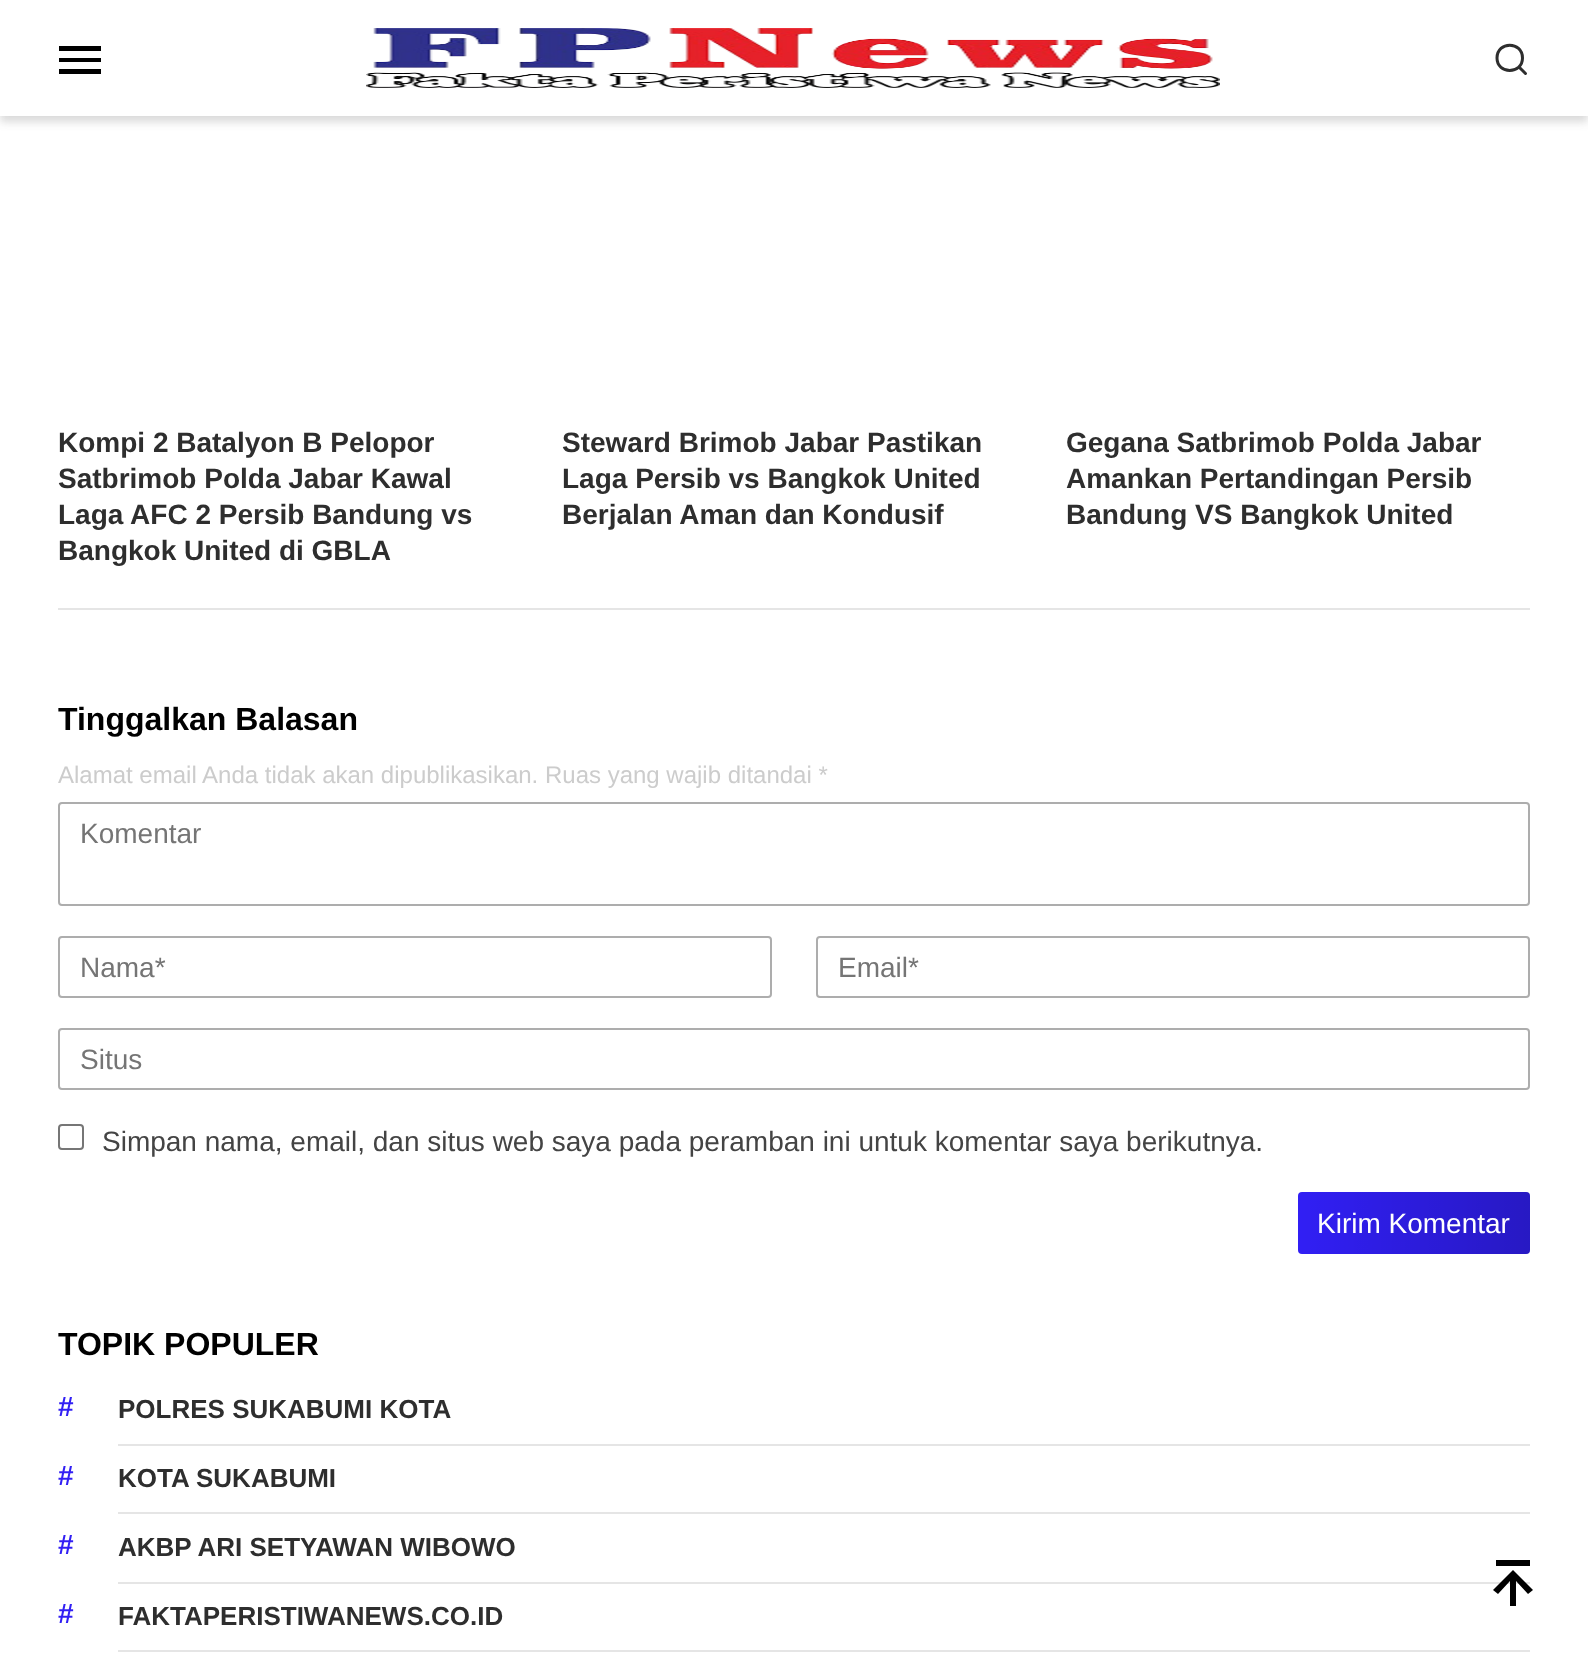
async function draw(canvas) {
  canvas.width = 1588
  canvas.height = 1665
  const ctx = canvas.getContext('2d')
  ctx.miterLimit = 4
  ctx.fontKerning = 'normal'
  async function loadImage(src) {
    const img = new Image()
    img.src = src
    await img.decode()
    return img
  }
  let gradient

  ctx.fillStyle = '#fff'
  ctx.fillRect(0, 0, 1588, 1665)
  ctx.fillStyle = '#3434342e'
  ctx.filter = 'blur(4px)'
  ctx.beginPath()
  ctx.rect(0, 6, 1588, 116)
  ctx.fill()
  ctx.filter = 'none'
  ctx.fillStyle = '#fff'
  ctx.fillRect(0, 0, 1588, 116)
  ctx.fillStyle = '#000'
  ctx.beginPath()
  ctx.moveTo(59, 46)
  ctx.lineTo(101, 46)
  ctx.lineTo(101, 51)
  ctx.lineTo(59, 51)
  ctx.lineTo(59, 46)
  ctx.moveTo(59, 58)
  ctx.lineTo(101, 58)
  ctx.lineTo(101, 62)
  ctx.lineTo(59, 62)
  ctx.lineTo(59, 58)
  ctx.moveTo(59, 69)
  ctx.lineTo(101, 69)
  ctx.lineTo(101, 74)
  ctx.lineTo(59, 74)
  ctx.closePath()
  ctx.fill()
  ctx.drawImage(await loadImage('image0.png'), 366, 28, 854, 60)
  ctx.beginPath()
  ctx.moveTo(1525.5, 73.5)
  ctx.lineTo(1519, 67)
  ctx.moveTo(1522.5, 58)
  ctx.bezierCurveTo(1522.5, 74.5, 1497, 74.5, 1497, 58)
  ctx.bezierCurveTo(1497, 41, 1522.5, 41, 1522.5, 58)
  ctx.closePath()
  ctx.strokeStyle = '#2e2e2e'
  ctx.lineWidth = 3
  ctx.lineCap = 'round'
  ctx.stroke()
  ctx.fillStyle = '#e5e5e5'
  ctx.fillRect(58, 608, 1472, 2)
  ctx.font = 'bold 28px Liberation Sans'
  ctx.fillStyle = '#2e2e2e'
  ctx.fillText('Kompi 2 Batalyon B Pelopor', 58, 452)
  ctx.fillText('Satbrimob Polda Jabar Kawal', 58, 488)
  ctx.fillText('Laga AFC 2 Persib Bandung vs', 58, 524)
  ctx.fillText('Bangkok United di GBLA', 58, 560)
  ctx.fillText('Steward Brimob Jabar Pastikan', 562, 452)
  ctx.fillText('Laga Persib vs Bangkok United', 562, 488)
  ctx.fillText('Berjalan Aman dan Kondusif', 562, 524)
  ctx.fillText('Gegana Satbrimob Polda Jabar', 1066, 452)
  ctx.fillText('Amankan Pertandingan Persib', 1066, 488)
  ctx.fillText('Bandung VS Bangkok United', 1066, 524)
  ctx.font = 'bold 32px Liberation Sans'
  ctx.fillStyle = '#000'
  ctx.fillText('Tinggalkan Balasan', 58, 730)
  ctx.font = '24px Liberation Sans'
  ctx.fillStyle = '#ccc'
  ctx.fillText('Alamat email Anda tidak akan dipublikasikan. Ruas yang wajib ditandai *', 58, 783)
  ctx.beginPath()
  ctx.roundRect(59, 803, 1470, 102, 3)
  ctx.strokeStyle = '#adadad'
  ctx.lineWidth = 2
  ctx.stroke()
  ctx.font = '28px Liberation Sans'
  ctx.fillStyle = '#757575'
  ctx.fillText('Komentar', 80, 843)
  ctx.beginPath()
  ctx.roundRect(59, 937, 712, 60, 3)
  ctx.stroke()
  ctx.fillText('Nama*', 80, 977)
  ctx.beginPath()
  ctx.roundRect(817, 937, 712, 60, 3)
  ctx.stroke()
  ctx.fillText('Email*', 838, 977)
  ctx.beginPath()
  ctx.roundRect(59, 1029, 1470, 60, 3)
  ctx.stroke()
  ctx.fillText('Situs', 80, 1069)
  ctx.beginPath()
  ctx.roundRect(59, 1125, 24, 24, 3)
  ctx.strokeStyle = '#767676'
  ctx.stroke()
  ctx.fillStyle = '#444'
  ctx.fillText('Simpan nama, email, dan situs web saya pada peramban ini untuk komentar saya berikutnya.', 102, 1151)
  ctx.fillStyle = '#311ff4'
  ctx.beginPath()
  ctx.roundRect(1298, 1192, 232, 62, 4)
  ctx.fill()
  gradient = ctx.createLinearGradient(1298, 1223, 1530, 1223)
  gradient.addColorStop(0, '#00000000')
  gradient.addColorStop(1, '#00000033')
  ctx.fillStyle = gradient
  ctx.beginPath()
  ctx.roundRect(1298, 1192, 232, 62, 4)
  ctx.fill()
  ctx.fillStyle = '#fff'
  ctx.fillText('Kirim Komentar', 1317, 1233)
  ctx.font = 'bold 32px Liberation Sans'
  ctx.fillStyle = '#000'
  ctx.fillText('TOPIK POPULER', 58, 1355)
  ctx.font = 'bold 28px Liberation Sans'
  ctx.fillStyle = '#311ff4'
  ctx.fillText('#', 58, 1416)
  ctx.fillStyle = '#e5e5e5'
  ctx.fillRect(118, 1444, 1412, 2)
  ctx.font = 'bold 26px Liberation Sans'
  ctx.fillStyle = '#2e2e2e'
  ctx.fillText('POLRES SUKABUMI KOTA', 118, 1418)
  ctx.font = 'bold 28px Liberation Sans'
  ctx.fillStyle = '#311ff4'
  ctx.fillText('#', 58, 1485)
  ctx.fillStyle = '#e5e5e5'
  ctx.fillRect(118, 1512, 1412, 2)
  ctx.font = 'bold 26px Liberation Sans'
  ctx.fillStyle = '#2e2e2e'
  ctx.fillText('KOTA SUKABUMI', 118, 1487)
  ctx.font = 'bold 28px Liberation Sans'
  ctx.fillStyle = '#311ff4'
  ctx.fillText('#', 58, 1554)
  ctx.fillStyle = '#e5e5e5'
  ctx.fillRect(118, 1582, 1412, 2)
  ctx.font = 'bold 26px Liberation Sans'
  ctx.fillStyle = '#2e2e2e'
  ctx.fillText('AKBP ARI SETYAWAN WIBOWO', 118, 1556)
  ctx.font = 'bold 28px Liberation Sans'
  ctx.fillStyle = '#311ff4'
  ctx.fillText('#', 58, 1623)
  ctx.fillStyle = '#e5e5e5'
  ctx.fillRect(118, 1650, 1412, 2)
  ctx.font = 'bold 26px Liberation Sans'
  ctx.fillStyle = '#2e2e2e'
  ctx.fillText('FAKTAPERISTIWANEWS.CO.ID', 118, 1625)
  ctx.fillStyle = '#000'
  ctx.beginPath()
  ctx.moveTo(1496, 1560)
  ctx.lineTo(1530, 1560)
  ctx.lineTo(1530, 1566)
  ctx.lineTo(1496, 1566)
  ctx.closePath()
  ctx.moveTo(1498, 1594)
  ctx.lineTo(1510, 1581)
  ctx.lineTo(1510, 1606)
  ctx.lineTo(1516, 1606)
  ctx.lineTo(1516, 1581)
  ctx.lineTo(1528, 1594)
  ctx.lineTo(1533, 1590)
  ctx.lineTo(1513, 1570)
  ctx.lineTo(1493, 1590)
  ctx.closePath()
  ctx.fill()
}

draw(document.querySelector('canvas'))
